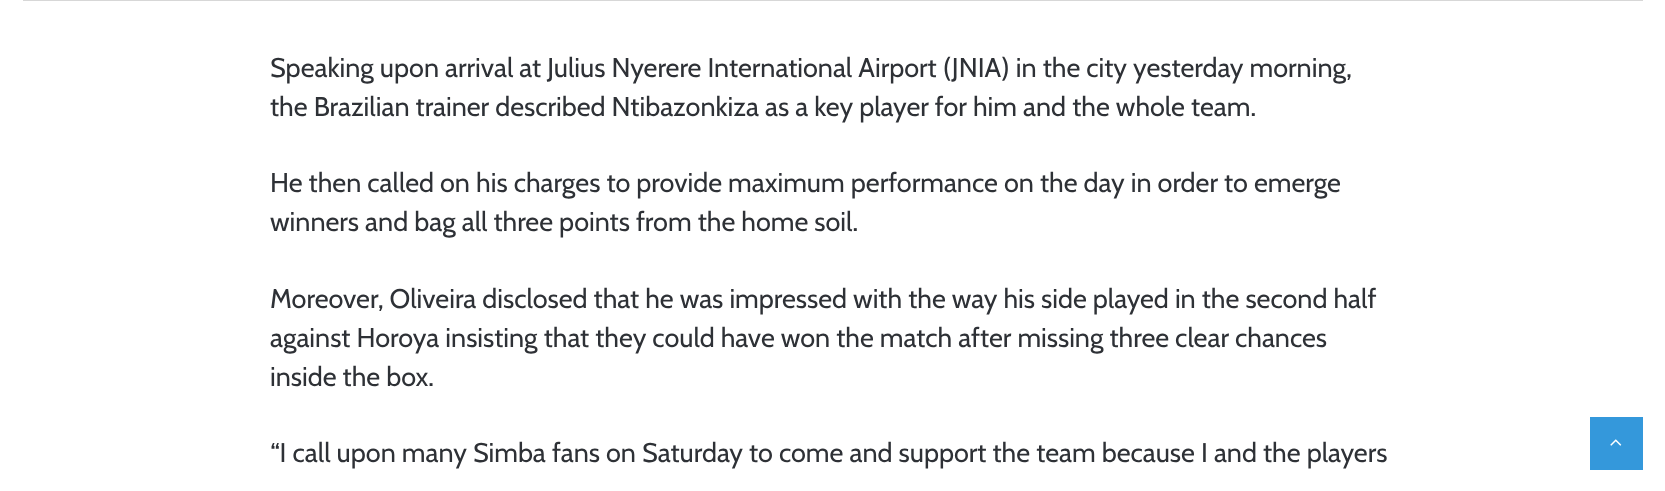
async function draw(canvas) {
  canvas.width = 1665
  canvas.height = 491
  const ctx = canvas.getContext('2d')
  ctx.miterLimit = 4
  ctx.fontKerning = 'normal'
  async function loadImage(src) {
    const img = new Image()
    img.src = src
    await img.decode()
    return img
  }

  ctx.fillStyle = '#fff'
  ctx.fillRect(0, 0, 1665, 491)
  ctx.fillStyle = '#d5d5d5f2'
  ctx.fillRect(23, 0, 1620, 1)
  ctx.font = '27px Cabin'
  ctx.fillStyle = '#2e3136'
  ctx.fillText('Speaking upon arrival at Julius Nyerere International Airport (JNIA) in the city yesterday morning,', 270, 77)
  ctx.fillText('the Brazilian trainer described Ntibazonkiza as a key player for him and the whole team.', 270, 116)
  ctx.fillText('He then called on his charges to provide maximum performance on the day in order to emerge', 270, 192)
  ctx.fillText('winners and bag all three points from the home soil.', 270, 231)
  ctx.fillText('Moreover, Oliveira disclosed that he was impressed with the way his side played in the second half', 270, 308)
  ctx.fillText('against Horoya insisting that they could have won the match after missing three clear chances', 270, 347)
  ctx.fillText('inside the box.', 270, 386)
  ctx.fillText('“I call upon many Simba fans on Saturday to come and support the team because I and the players', 270, 462)
  ctx.fillStyle = '#3498db'
  ctx.fillRect(1590, 417, 53, 53)
  ctx.drawImage(await loadImage('image0.png'), 1610, 439, 12, 7)
}

draw(document.querySelector('canvas'))
